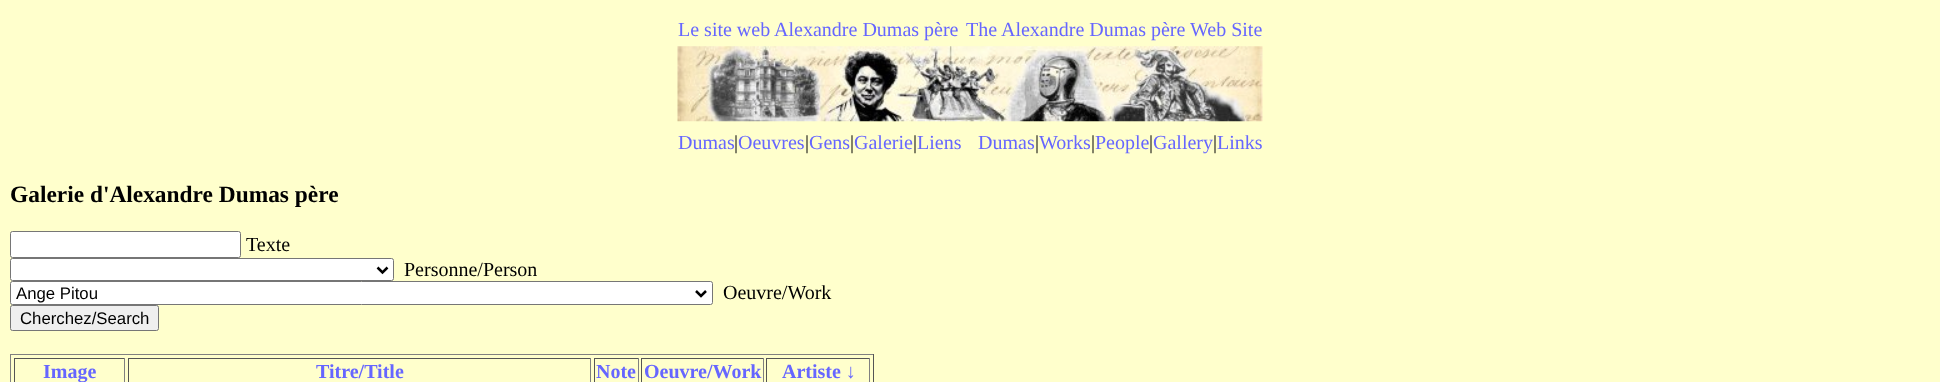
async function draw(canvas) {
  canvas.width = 1940
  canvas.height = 382
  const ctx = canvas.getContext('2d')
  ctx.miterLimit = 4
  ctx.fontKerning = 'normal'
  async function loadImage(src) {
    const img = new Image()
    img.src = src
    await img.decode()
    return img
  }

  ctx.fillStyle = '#ffc'
  ctx.fillRect(0, 0, 1940, 382)
  ctx.font = '20px Liberation Serif'
  ctx.fillStyle = '#66f'
  ctx.fillText('Le site web Alexandre Dumas père', 678, 36)
  ctx.fillText('The Alexandre Dumas père Web Site', 966, 36)
  ctx.drawImage(await loadImage('image0.png'), 677, 46, 586, 76)
  ctx.fillText('Dumas', 678, 149)
  ctx.fillStyle = '#000'
  ctx.fillText('|', 734, 149)
  ctx.fillStyle = '#66f'
  ctx.fillText('Oeuvres', 738, 149)
  ctx.fillStyle = '#000'
  ctx.fillText('|', 805, 149)
  ctx.fillStyle = '#66f'
  ctx.fillText('Gens', 809, 149)
  ctx.fillStyle = '#000'
  ctx.fillText('|', 850, 149)
  ctx.fillStyle = '#66f'
  ctx.fillText('Galerie', 854, 149)
  ctx.fillStyle = '#000'
  ctx.fillText('|', 913, 149)
  ctx.fillStyle = '#66f'
  ctx.fillText('Liens', 917, 149)
  ctx.fillText('Dumas', 978, 149)
  ctx.fillStyle = '#000'
  ctx.fillText('|', 1035, 149)
  ctx.fillStyle = '#66f'
  ctx.fillText('Works', 1039, 149)
  ctx.fillStyle = '#000'
  ctx.fillText('|', 1091, 149)
  ctx.fillStyle = '#66f'
  ctx.fillText('People', 1095, 149)
  ctx.fillStyle = '#000'
  ctx.fillText('|', 1149, 149)
  ctx.fillStyle = '#66f'
  ctx.fillText('Gallery', 1153, 149)
  ctx.fillStyle = '#000'
  ctx.fillText('|', 1213, 149)
  ctx.fillStyle = '#66f'
  ctx.fillText('Links', 1217, 149)
  ctx.font = 'bold 23.4px Liberation Serif'
  ctx.fillStyle = '#000'
  ctx.fillText('Galerie d\'Alexandre Dumas père', 10, 202)
  ctx.fillStyle = '#fff'
  ctx.beginPath()
  ctx.roundRect(10.5, 231.5, 230, 26, 2)
  ctx.fill()
  ctx.strokeStyle = '#767676'
  ctx.stroke()
  ctx.font = '20px Liberation Serif'
  ctx.fillStyle = '#000'
  ctx.fillText('Texte', 246, 251)
  ctx.fillStyle = '#fff'
  ctx.beginPath()
  ctx.roundRect(10.5, 258.5, 383, 22, 2)
  ctx.fill()
  ctx.stroke()
  ctx.beginPath()
  ctx.moveTo(377.5, 267.5)
  ctx.lineTo(382.5, 272.5)
  ctx.lineTo(387.5, 267.5)
  ctx.strokeStyle = '#000'
  ctx.lineWidth = 2.5
  ctx.stroke()
  ctx.fillStyle = '#000'
  ctx.fillText('Personne/Person', 404, 276)
  ctx.fillStyle = '#fff'
  ctx.beginPath()
  ctx.roundRect(10.5, 281.5, 702, 23, 2)
  ctx.fill()
  ctx.strokeStyle = '#767676'
  ctx.lineWidth = 1
  ctx.stroke()
  ctx.beginPath()
  ctx.moveTo(696, 291)
  ctx.lineTo(701, 296)
  ctx.lineTo(706, 291)
  ctx.strokeStyle = '#000'
  ctx.lineWidth = 2.5
  ctx.stroke()
  ctx.font = '16.75px Liberation Sans'
  ctx.fillStyle = '#000'
  ctx.fillText('Ange Pitou', 16, 299)
  ctx.font = '20px Liberation Serif'
  ctx.fillText('Oeuvre/Work', 723, 299)
  ctx.fillStyle = '#efefef'
  ctx.beginPath()
  ctx.roundRect(10.5, 305.5, 148, 25, 2)
  ctx.fill()
  ctx.strokeStyle = '#767676'
  ctx.lineWidth = 1
  ctx.stroke()
  ctx.font = '16.75px Liberation Sans'
  ctx.fillStyle = '#000'
  ctx.fillText('Cherchez/Search', 20, 324)
  ctx.fillStyle = '#808080'
  ctx.fillRect(10, 354, 864, 1)
  ctx.fillStyle = '#555'
  ctx.fillRect(873, 354, 1, 28)
  ctx.fillStyle = '#808080'
  ctx.fillRect(10, 354, 1, 28)
  ctx.fillStyle = '#555'
  ctx.fillRect(14, 358, 111, 1)
  ctx.fillStyle = '#808080'
  ctx.fillRect(124, 358, 1, 24)
  ctx.fillStyle = '#555'
  ctx.fillRect(14, 358, 1, 24)
  ctx.font = 'bold 20px Liberation Serif'
  ctx.fillStyle = '#66f'
  ctx.fillText('Image', 43, 378)
  ctx.fillStyle = '#555'
  ctx.fillRect(128, 358, 463, 1)
  ctx.fillStyle = '#808080'
  ctx.fillRect(590, 358, 1, 24)
  ctx.fillStyle = '#555'
  ctx.fillRect(128, 358, 1, 24)
  ctx.fillStyle = '#66f'
  ctx.fillText('Titre/Title', 316, 378)
  ctx.fillStyle = '#555'
  ctx.fillRect(594, 358, 45, 1)
  ctx.fillStyle = '#808080'
  ctx.fillRect(638, 358, 1, 24)
  ctx.fillStyle = '#555'
  ctx.fillRect(594, 358, 1, 24)
  ctx.fillStyle = '#66f'
  ctx.fillText('Note', 596, 378)
  ctx.fillStyle = '#555'
  ctx.fillRect(641, 358, 123, 1)
  ctx.fillStyle = '#808080'
  ctx.fillRect(763, 358, 1, 24)
  ctx.fillStyle = '#555'
  ctx.fillRect(641, 358, 1, 24)
  ctx.fillStyle = '#66f'
  ctx.fillText('Oeuvre/Work', 644, 378)
  ctx.fillStyle = '#555'
  ctx.fillRect(766, 358, 104, 1)
  ctx.fillStyle = '#808080'
  ctx.fillRect(869, 358, 1, 24)
  ctx.fillStyle = '#555'
  ctx.fillRect(766, 358, 1, 24)
  ctx.fillStyle = '#66f'
  ctx.fillText('Artiste ↓', 782, 378)
}

draw(document.querySelector('canvas'))
